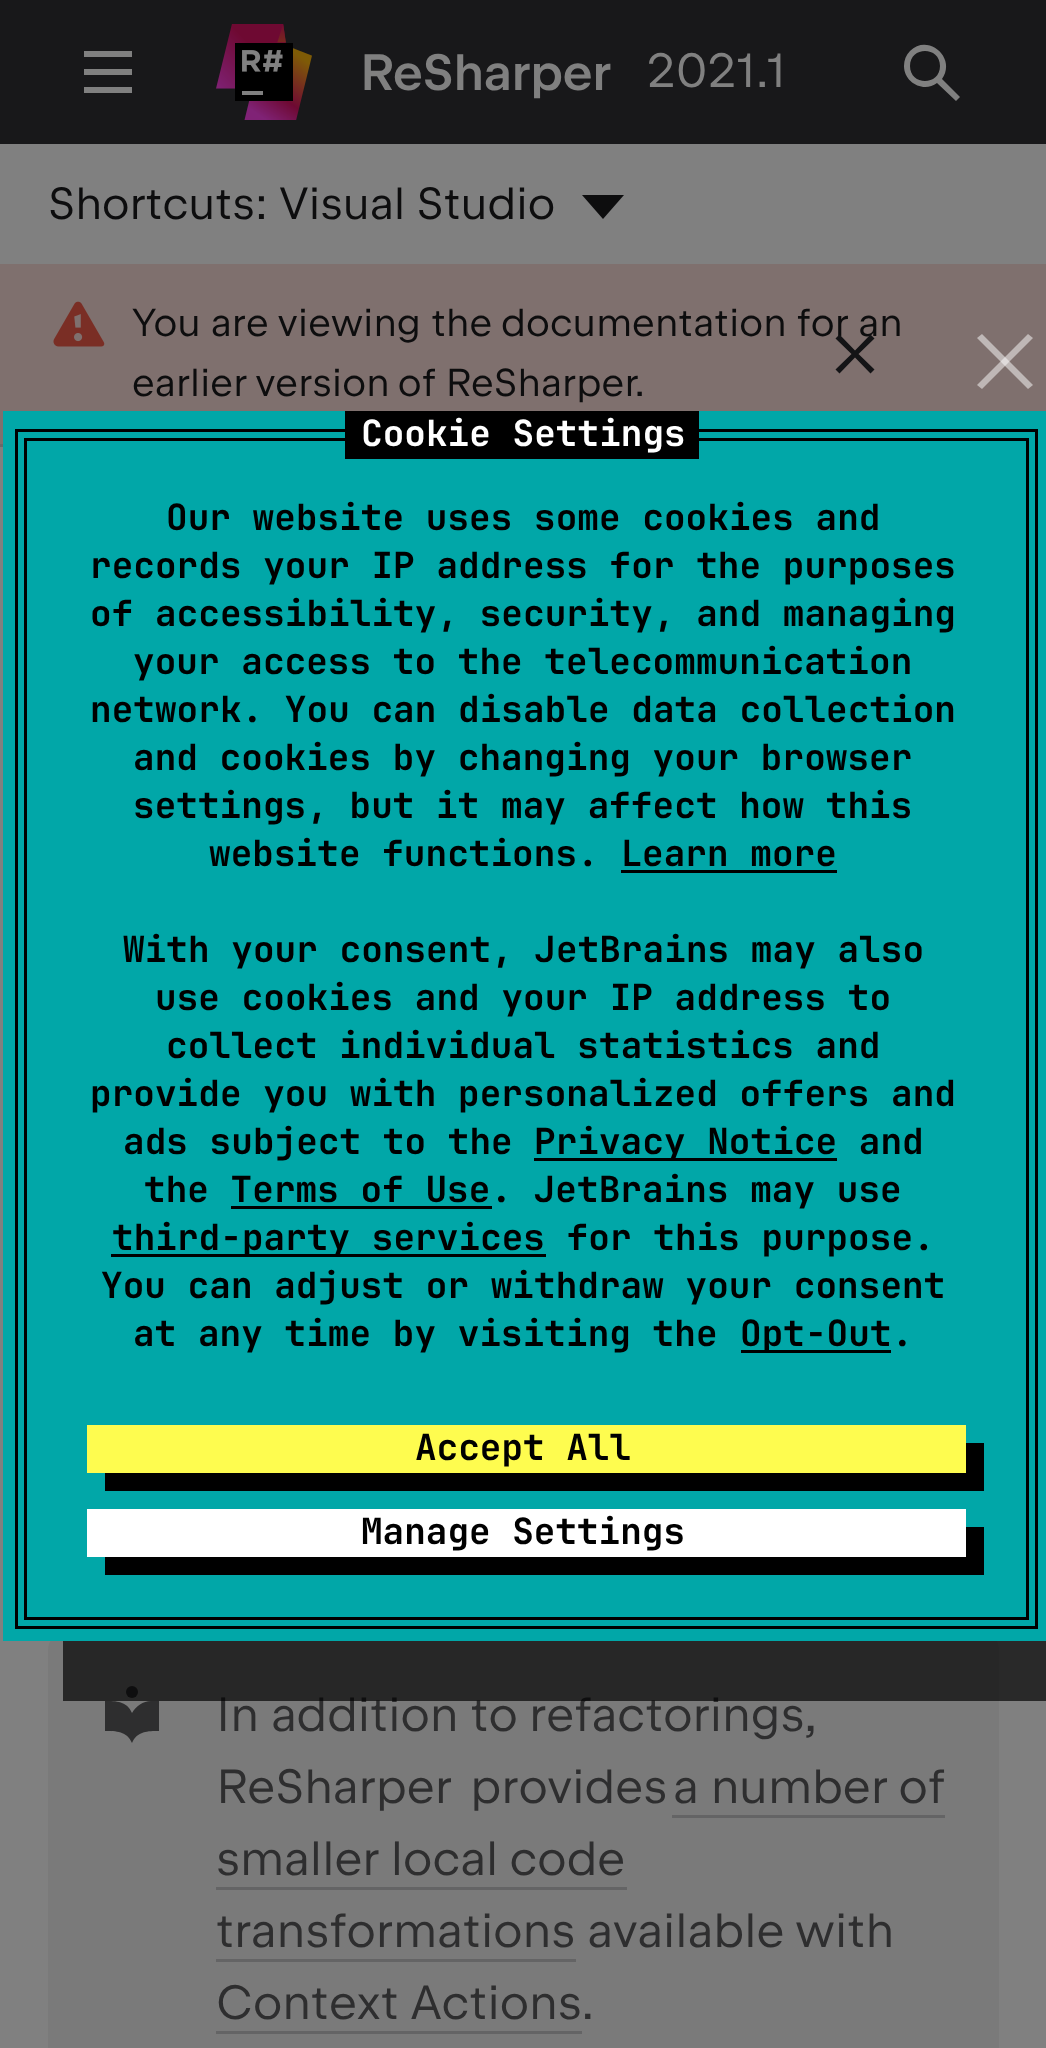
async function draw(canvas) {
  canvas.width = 1046
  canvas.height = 2048
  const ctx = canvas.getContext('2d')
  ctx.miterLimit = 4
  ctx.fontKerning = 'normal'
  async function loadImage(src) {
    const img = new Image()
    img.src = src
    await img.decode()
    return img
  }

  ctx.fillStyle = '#808080'
  ctx.fillRect(0, 0, 1046, 2048)
  ctx.fillStyle = '#18181a'
  ctx.fillRect(0, 0, 1046, 144)
  ctx.fillStyle = '#808080'
  ctx.beginPath()
  ctx.moveTo(84, 51)
  ctx.lineTo(132, 51)
  ctx.lineTo(132, 57)
  ctx.lineTo(84, 57)
  ctx.closePath()
  ctx.moveTo(84, 69)
  ctx.lineTo(132, 69)
  ctx.lineTo(132, 75)
  ctx.lineTo(84, 75)
  ctx.closePath()
  ctx.moveTo(84, 87)
  ctx.lineTo(132, 87)
  ctx.lineTo(132, 93)
  ctx.lineTo(84, 93)
  ctx.closePath()
  ctx.fill()
  ctx.drawImage(await loadImage('image0.png'), 216, 24, 96, 96)
  ctx.letterSpacing = '-0.25px'
  ctx.font = '500 51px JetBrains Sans'
  ctx.fillText('ReSharper', 360, 90)
  ctx.letterSpacing = '0.05px'
  ctx.font = '48px JetBrains Sans'
  ctx.fillText('2021.1', 647, 87)
  ctx.beginPath()
  ctx.moveTo(904, 66)
  ctx.bezierCurveTo(904, 83, 924, 93, 937, 83)
  ctx.lineTo(956, 101)
  ctx.lineTo(960, 97)
  ctx.lineTo(942, 79)
  ctx.bezierCurveTo(957, 58, 928, 33, 910, 51)
  ctx.bezierCurveTo(906, 55, 904, 60, 904, 66)
  ctx.closePath()
  ctx.moveTo(910, 66)
  ctx.bezierCurveTo(910, 46, 940, 46, 940, 66)
  ctx.bezierCurveTo(940, 86, 910, 86, 910, 66)
  ctx.closePath()
  ctx.fill()
  ctx.font = '45px JetBrains Sans'
  ctx.fillStyle = '#0d0d0e'
  ctx.fillText('Shortcuts:', 48, 219)
  ctx.fillText('Visual Studio', 279, 219)
  ctx.beginPath()
  ctx.moveTo(603, 219)
  ctx.lineTo(582, 195)
  ctx.lineTo(624, 195)
  ctx.closePath()
  ctx.fill()
  ctx.fillStyle = '#7f706e'
  ctx.fillRect(0, 264, 1046, 180)
  ctx.fillStyle = '#696969'
  ctx.fillRect(0, 444, 3, 3)
  ctx.drawImage(await loadImage('image1.png'), 53, 301, 52, 46)
  ctx.letterSpacing = '0.2px'
  ctx.font = '39px JetBrains Sans'
  ctx.fillStyle = '#0d0d0e'
  ctx.fillText('You are viewing the documentation for an', 132, 336)
  ctx.wordSpacing = '-1px'
  ctx.fillText('earlier version of ReSharper.', 132, 396)
  ctx.fillStyle = '#141416'
  ctx.beginPath()
  ctx.moveTo(874.5, 338.5)
  ctx.lineTo(870.5, 334.5)
  ctx.lineTo(855, 350.5)
  ctx.lineTo(839.5, 334.5)
  ctx.lineTo(835.5, 338.5)
  ctx.lineTo(851.5, 354)
  ctx.lineTo(835.5, 369.5)
  ctx.lineTo(839.5, 373.5)
  ctx.lineTo(855, 357.5)
  ctx.lineTo(870.5, 373.5)
  ctx.lineTo(874.5, 369.5)
  ctx.lineTo(858.5, 354)
  ctx.closePath()
  ctx.fill()
  ctx.fillStyle = '#7a7a7a'
  ctx.beginPath()
  ctx.moveTo(66, 1632)
  ctx.lineTo(981, 1632)
  ctx.bezierCurveTo(991, 1632, 999, 1640, 999, 1650)
  ctx.lineTo(999, 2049)
  ctx.lineTo(48, 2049)
  ctx.lineTo(48, 1650)
  ctx.bezierCurveTo(48, 1640, 56, 1632, 66, 1632)
  ctx.closePath()
  ctx.fill()
  ctx.fillStyle = '#2e2e2f'
  ctx.beginPath()
  ctx.arc(132, 1692, 6, 0, 2 * Math.PI)
  ctx.fill()
  ctx.beginPath()
  ctx.moveTo(151, 1701)
  ctx.bezierCurveTo(143, 1701, 136, 1706, 132, 1713)
  ctx.bezierCurveTo(127, 1701, 116, 1701, 105, 1701)
  ctx.lineTo(105, 1731)
  ctx.bezierCurveTo(116, 1731, 127, 1731, 132, 1743)
  ctx.bezierCurveTo(137, 1731, 148, 1731, 159, 1731)
  ctx.lineTo(159, 1701)
  ctx.closePath()
  ctx.fill()
  ctx.letterSpacing = '0.05px'
  ctx.wordSpacing = '0px'
  ctx.font = '48px JetBrains Sans'
  ctx.fillText('In addition to refactorings,', 216, 1731)
  ctx.wordSpacing = '7px'
  ctx.fillText('ReSharper provides', 216, 1803)
  ctx.wordSpacing = '0px'
  ctx.fillText('a number of', 673, 1803)
  ctx.fillStyle = '#646465'
  ctx.fillRect(672, 1815, 273, 3)
  ctx.fillStyle = '#2e2e2f'
  ctx.fillText('smaller local code', 216, 1875)
  ctx.fillStyle = '#646465'
  ctx.fillRect(216, 1887, 411, 3)
  ctx.fillStyle = '#2e2e2f'
  ctx.fillText('transformations available with', 216, 1947)
  ctx.fillStyle = '#646465'
  ctx.fillRect(216, 1959, 360, 3)
  ctx.fillStyle = '#2e2e2f'
  ctx.fillText('Context Actions', 216, 2019)
  ctx.fillStyle = '#646465'
  ctx.fillRect(216, 2031, 366, 3)
  ctx.fillStyle = '#2e2e2f'
  ctx.fillText('.', 582, 2019)
  ctx.fillStyle = '#000000ad'
  ctx.beginPath()
  ctx.moveTo(63, 1641)
  ctx.lineTo(63, 1701)
  ctx.lineTo(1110, 1701)
  ctx.lineTo(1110, 471)
  ctx.lineTo(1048, 471)
  ctx.lineTo(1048, 1641)
  ctx.closePath()
  ctx.fill()
  ctx.fillStyle = '#01a7a8'
  ctx.fillRect(3, 411, 1043, 1230)
  ctx.fillStyle = '#bfb7b6'
  ctx.beginPath()
  ctx.moveTo(977, 385)
  ctx.lineTo(1028, 334)
  ctx.lineTo(1033, 338)
  ctx.lineTo(982, 389)
  ctx.closePath()
  ctx.fill()
  ctx.fillStyle = '#ffffff80'
  ctx.beginPath()
  ctx.moveTo(982, 334)
  ctx.lineTo(1033, 385)
  ctx.lineTo(1028, 389)
  ctx.lineTo(977, 338)
  ctx.closePath()
  ctx.fill()
  ctx.fillStyle = '#000'
  ctx.fillRect(24, 438, 1005, 3)
  ctx.fillRect(1026, 438, 3, 1182)
  ctx.fillRect(24, 438, 3, 987)
  ctx.fillRect(15, 429, 1023, 3)
  ctx.fillRect(345, 411, 354, 48)
  ctx.font = 'bold 36px JetBrains Mono'
  ctx.fillStyle = '#fff'
  ctx.fillText('Cookie Settings', 361, 446)
  ctx.fillStyle = '#000'
  ctx.fillRect(1035, 429, 3, 1200)
  ctx.fillRect(15, 429, 3, 993)
  ctx.fillText('Our website uses some cookies and', 166, 530)
  ctx.fillText('records your IP address for the purposes', 90, 578)
  ctx.fillText('of accessibility, security, and managing', 90, 626)
  ctx.fillText('your access to the telecommunication', 133, 674)
  ctx.fillText('network. You can disable data collection', 90, 722)
  ctx.fillText('and cookies by changing your browser', 133, 770)
  ctx.fillText('settings, but it may affect how this', 133, 818)
  ctx.fillText('website functions. Learn more', 209, 866)
  ctx.fillRect(621, 870, 216, 3)
  ctx.fillText('With your consent, JetBrains may also', 123, 962)
  ctx.fillText('use cookies and your IP address to', 155, 1010)
  ctx.fillText('collect individual statistics and', 166, 1058)
  ctx.fillText('provide you with personalized offers and', 90, 1106)
  ctx.fillText('ads subject to the', 123, 1154)
  ctx.fillRect(534, 1158, 303, 3)
  ctx.fillText('Privacy Notice and', 534, 1154)
  ctx.fillText('the Terms of Use. JetBrains may use', 144, 1202)
  ctx.fillRect(231, 1206, 261, 3)
  ctx.fillRect(111, 1254, 435, 3)
  ctx.fillText('third-party services for this purpose.', 112, 1250)
  ctx.fillText('You can adjust or withdraw your consent', 101, 1298)
  ctx.fillText('at any time by visiting the', 133, 1346)
  ctx.fillRect(741, 1350, 150, 3)
  ctx.fillText('Opt-Out.', 740, 1346)
  ctx.fillRect(24, 1617, 1005, 3)
  ctx.fillRect(24, 1425, 3, 195)
  ctx.fillRect(15, 1626, 1023, 3)
  ctx.fillRect(15, 1422, 3, 207)
  ctx.beginPath()
  ctx.moveTo(105, 1473)
  ctx.lineTo(105, 1491)
  ctx.lineTo(984, 1491)
  ctx.lineTo(984, 1443)
  ctx.lineTo(964, 1443)
  ctx.lineTo(964, 1473)
  ctx.closePath()
  ctx.fill()
  ctx.fillStyle = '#fefc4f'
  ctx.fillRect(87, 1425, 879, 48)
  ctx.letterSpacing = '0px'
  ctx.fillStyle = '#000'
  ctx.fillText('Accept All', 415, 1460)
  ctx.beginPath()
  ctx.moveTo(105, 1557)
  ctx.lineTo(105, 1575)
  ctx.lineTo(984, 1575)
  ctx.lineTo(984, 1527)
  ctx.lineTo(964, 1527)
  ctx.lineTo(964, 1557)
  ctx.closePath()
  ctx.fill()
  ctx.fillStyle = '#fff'
  ctx.fillRect(87, 1509, 879, 48)
  ctx.fillStyle = '#000'
  ctx.fillText('Manage Settings', 361, 1544)
}

draw(document.querySelector('canvas'))
